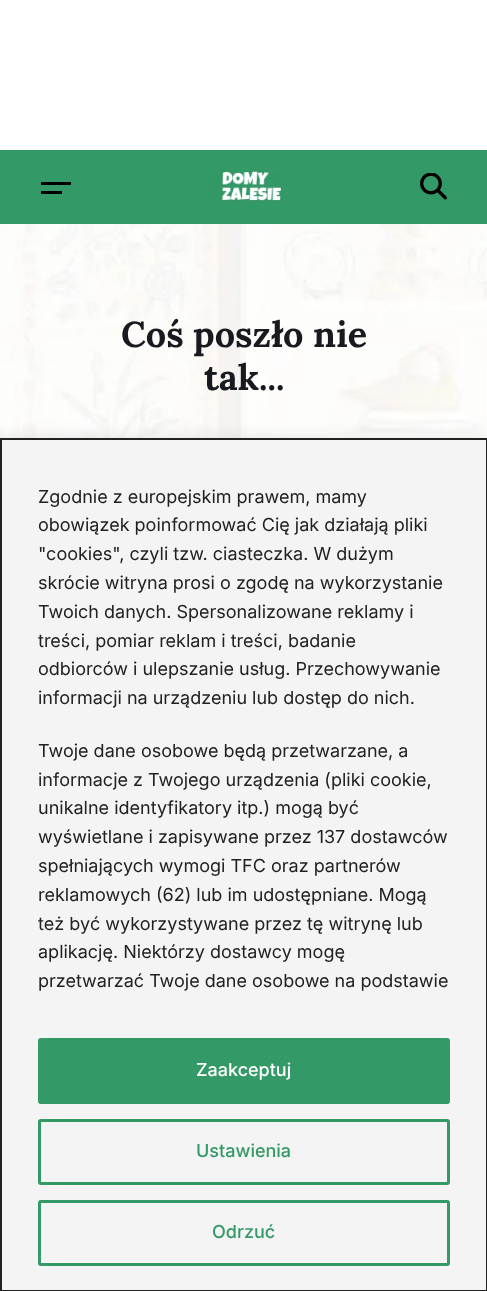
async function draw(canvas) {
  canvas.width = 487
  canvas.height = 1291
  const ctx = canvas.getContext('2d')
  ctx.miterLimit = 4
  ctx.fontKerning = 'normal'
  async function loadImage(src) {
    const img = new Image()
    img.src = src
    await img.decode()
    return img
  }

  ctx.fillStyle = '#fff'
  ctx.fillRect(0, 0, 487, 1291)
  ctx.drawImage(await loadImage('image0.png'), 0, 224, 487, 214)
  ctx.fillStyle = '#396'
  ctx.fillRect(0, 150, 487, 74)
  ctx.fillStyle = '#000'
  ctx.fillRect(41, 182, 30, 3)
  ctx.fillRect(41, 191, 21, 3)
  ctx.drawImage(await loadImage('image1.png'), 206, 170, 78, 32)
  ctx.drawImage(await loadImage('image2.png'), 420, 173, 27, 27)
  ctx.font = 'bold 36px Lora'
  ctx.fillStyle = '#191a1f'
  ctx.fillText('Coś poszło nie', 121, 347)
  ctx.fillText('tak...', 204, 390)
  ctx.fillStyle = '#acabab4d'
  ctx.filter = 'blur(7.5px)'
  ctx.beginPath()
  ctx.rect(0, 437, 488, 853)
  ctx.fill()
  ctx.filter = 'none'
  ctx.fillStyle = '#f4f4f4'
  ctx.beginPath()
  ctx.rect(1, 439, 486, 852)
  ctx.fill()
  ctx.strokeStyle = '#212121'
  ctx.lineWidth = 2
  ctx.stroke()
  ctx.font = '18px Inter'
  ctx.fillStyle = '#212121'
  ctx.fillText('Zgodnie z europejskim prawem, mamy', 38, 503)
  ctx.fillText('obowiązek poinformować Cię jak działają pliki', 38, 531)
  ctx.fillText('"cookies", czyli tzw. ciasteczka. W dużym', 38, 560)
  ctx.fillText('skrócie witryna prosi o zgodę na wykorzystanie', 38, 589)
  ctx.fillText('Twoich danych. Spersonalizowane reklamy i', 38, 618)
  ctx.fillText('treści, pomiar reklam i treści, badanie', 38, 647)
  ctx.fillText('odbiorców i ulepszanie usług. Przechowywanie', 38, 675)
  ctx.fillText('informacji na urządzeniu lub dostęp do nich.', 38, 704)
  ctx.fillText('Twoje dane osobowe będą przetwarzane, a', 38, 757)
  ctx.fillText('informacje z Twojego urządzenia (pliki cookie,', 38, 786)
  ctx.fillText('unikalne identyfikatory itp.) mogą być', 38, 814)
  ctx.fillText('wyświetlane i zapisywane przez 137 dostawców', 38, 843)
  ctx.fillText('spełniających wymogi TFC oraz partnerów', 38, 872)
  ctx.fillText('reklamowych (62) lub im udostępniane. Mogą', 38, 901)
  ctx.fillText('też być wykorzystywane przez tę witrynę lub', 38, 930)
  ctx.fillText('aplikację. Niektórzy dostawcy mogę', 38, 958)
  ctx.fillText('przetwarzać Twoje dane osobowe na podstawie', 38, 987)
  ctx.fillStyle = '#396'
  ctx.beginPath()
  ctx.roundRect(39.5, 1039.5, 409, 63, 1.5)
  ctx.fill()
  ctx.strokeStyle = '#396'
  ctx.lineWidth = 3
  ctx.stroke()
  ctx.font = '500 18px Inter'
  ctx.fillStyle = '#fff'
  ctx.fillText('Zaakceptuj', 196, 1076)
  ctx.beginPath()
  ctx.roundRect(39.5, 1120.5, 409, 63, 1.5)
  ctx.stroke()
  ctx.fillStyle = '#396'
  ctx.fillText('Ustawienia', 196, 1157)
  ctx.beginPath()
  ctx.roundRect(39.5, 1201.5, 409, 63, 1.5)
  ctx.stroke()
  ctx.fillText('Odrzuć', 212, 1238)
}

draw(document.querySelector('canvas'))
